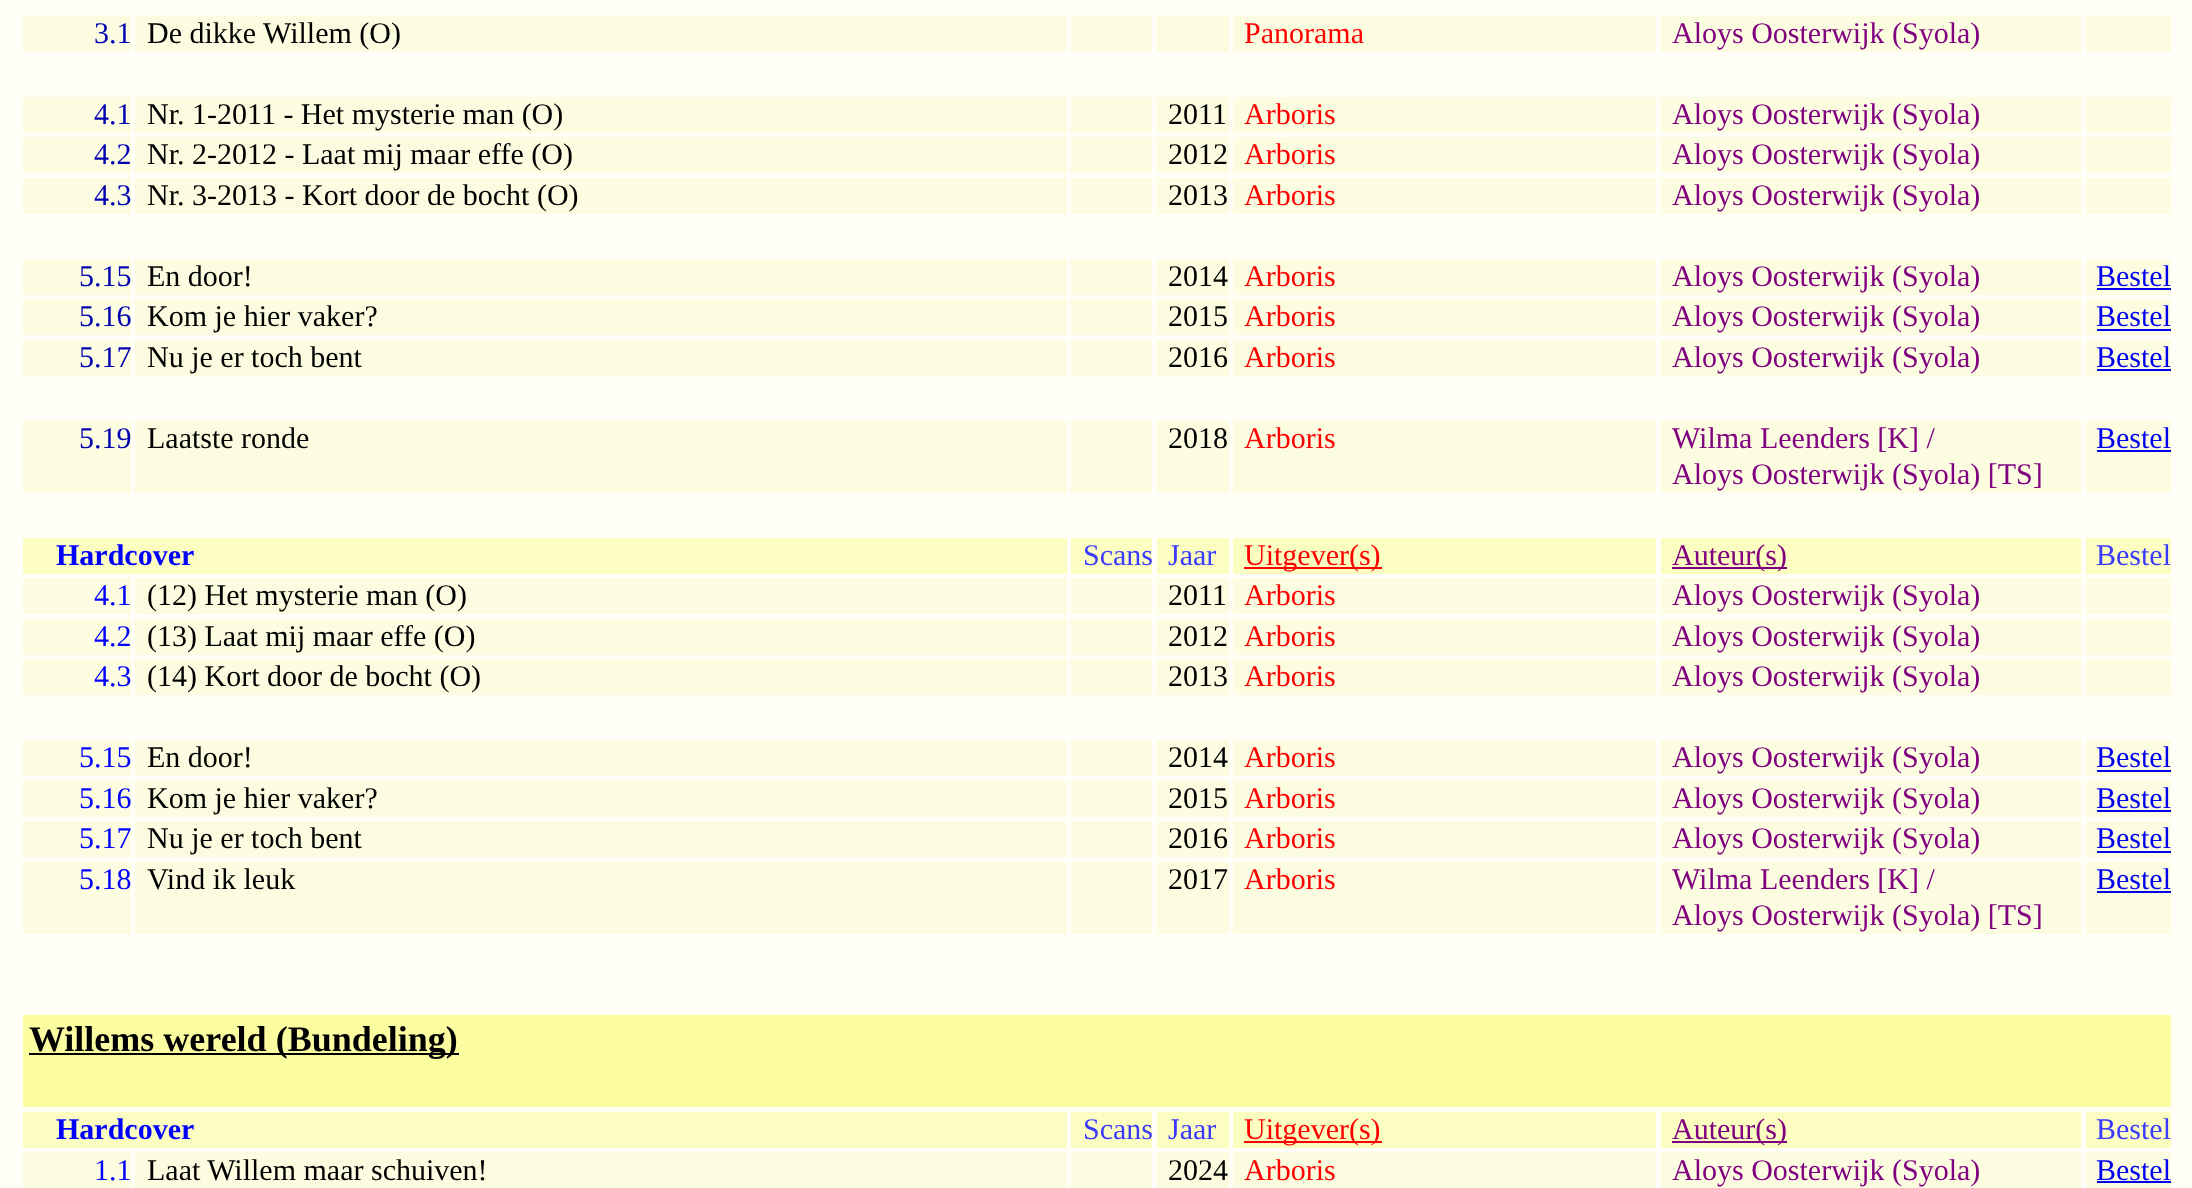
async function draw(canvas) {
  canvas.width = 2192
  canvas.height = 1188
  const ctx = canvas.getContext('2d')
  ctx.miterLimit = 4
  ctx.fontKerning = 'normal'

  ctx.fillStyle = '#fffff7'
  ctx.fillRect(0, 0, 2192, 1188)
  ctx.fillStyle = '#fcfde0'
  ctx.fillRect(23, 16, 108, 36)
  ctx.font = '30px Liberation Serif'
  ctx.fillStyle = '#0000b2'
  ctx.fillText('3.1', 94, 43)
  ctx.fillStyle = '#fcfde0'
  ctx.fillRect(135, 16, 932, 36)
  ctx.fillStyle = '#000'
  ctx.fillText('De dikke Willem (O)', 147, 43)
  ctx.fillStyle = '#fcfde0'
  ctx.fillRect(1071, 16, 81, 36)
  ctx.fillRect(1157, 16, 72, 36)
  ctx.fillRect(1233, 16, 423, 36)
  ctx.fillStyle = '#f00'
  ctx.fillText('Panorama', 1244, 43)
  ctx.fillStyle = '#fcfde0'
  ctx.fillRect(1661, 16, 420, 36)
  ctx.fillStyle = '#800080'
  ctx.fillText('Aloys Oosterwijk (Syola)', 1672, 43)
  ctx.fillStyle = '#fcfde0'
  ctx.fillRect(2086, 16, 85, 36)
  ctx.fillRect(23, 97, 108, 36)
  ctx.fillStyle = '#0000b2'
  ctx.fillText('4.1', 94, 124)
  ctx.fillStyle = '#fcfde0'
  ctx.fillRect(135, 97, 932, 36)
  ctx.fillStyle = '#000'
  ctx.fillText('Nr. 1-2011 - Het mysterie man (O)', 147, 124)
  ctx.fillStyle = '#fcfde0'
  ctx.fillRect(1071, 97, 81, 36)
  ctx.fillRect(1157, 97, 72, 36)
  ctx.fillStyle = '#000'
  ctx.fillText('2011', 1168, 124)
  ctx.fillStyle = '#fcfde0'
  ctx.fillRect(1233, 97, 423, 36)
  ctx.fillStyle = '#f00'
  ctx.fillText('Arboris', 1244, 124)
  ctx.fillStyle = '#fcfde0'
  ctx.fillRect(1661, 97, 420, 36)
  ctx.fillStyle = '#800080'
  ctx.fillText('Aloys Oosterwijk (Syola)', 1672, 124)
  ctx.fillStyle = '#fcfde0'
  ctx.fillRect(2086, 97, 85, 36)
  ctx.fillRect(23, 137, 108, 36)
  ctx.fillStyle = '#0000b2'
  ctx.fillText('4.2', 94, 164)
  ctx.fillStyle = '#fcfde0'
  ctx.fillRect(135, 137, 932, 36)
  ctx.fillStyle = '#000'
  ctx.fillText('Nr. 2-2012 - Laat mij maar effe (O)', 147, 164)
  ctx.fillStyle = '#fcfde0'
  ctx.fillRect(1071, 137, 81, 36)
  ctx.fillRect(1157, 137, 72, 36)
  ctx.fillStyle = '#000'
  ctx.fillText('2012', 1168, 164)
  ctx.fillStyle = '#fcfde0'
  ctx.fillRect(1233, 137, 423, 36)
  ctx.fillStyle = '#f00'
  ctx.fillText('Arboris', 1244, 164)
  ctx.fillStyle = '#fcfde0'
  ctx.fillRect(1661, 137, 420, 36)
  ctx.fillStyle = '#800080'
  ctx.fillText('Aloys Oosterwijk (Syola)', 1672, 164)
  ctx.fillStyle = '#fcfde0'
  ctx.fillRect(2086, 137, 85, 36)
  ctx.fillRect(23, 178, 108, 36)
  ctx.fillStyle = '#0000b2'
  ctx.fillText('4.3', 94, 205)
  ctx.fillStyle = '#fcfde0'
  ctx.fillRect(135, 178, 932, 36)
  ctx.fillStyle = '#000'
  ctx.fillText('Nr. 3-2013 - Kort door de bocht (O)', 147, 205)
  ctx.fillStyle = '#fcfde0'
  ctx.fillRect(1071, 178, 81, 36)
  ctx.fillRect(1157, 178, 72, 36)
  ctx.fillStyle = '#000'
  ctx.fillText('2013', 1168, 205)
  ctx.fillStyle = '#fcfde0'
  ctx.fillRect(1233, 178, 423, 36)
  ctx.fillStyle = '#f00'
  ctx.fillText('Arboris', 1244, 205)
  ctx.fillStyle = '#fcfde0'
  ctx.fillRect(1661, 178, 420, 36)
  ctx.fillStyle = '#800080'
  ctx.fillText('Aloys Oosterwijk (Syola)', 1672, 205)
  ctx.fillStyle = '#fcfde0'
  ctx.fillRect(2086, 178, 85, 36)
  ctx.fillRect(23, 259, 108, 36)
  ctx.fillStyle = '#0000b2'
  ctx.fillText('5.15', 79, 286)
  ctx.fillStyle = '#fcfde0'
  ctx.fillRect(135, 259, 932, 36)
  ctx.fillStyle = '#000'
  ctx.fillText('En door!', 147, 286)
  ctx.fillStyle = '#fcfde0'
  ctx.fillRect(1071, 259, 81, 36)
  ctx.fillRect(1157, 259, 72, 36)
  ctx.fillStyle = '#000'
  ctx.fillText('2014', 1168, 286)
  ctx.fillStyle = '#fcfde0'
  ctx.fillRect(1233, 259, 423, 36)
  ctx.fillStyle = '#f00'
  ctx.fillText('Arboris', 1244, 286)
  ctx.fillStyle = '#fcfde0'
  ctx.fillRect(1661, 259, 420, 36)
  ctx.fillStyle = '#800080'
  ctx.fillText('Aloys Oosterwijk (Syola)', 1672, 286)
  ctx.fillStyle = '#fcfde0'
  ctx.fillRect(2086, 259, 85, 36)
  ctx.fillStyle = '#00e'
  ctx.fillText('Bestel', 2096, 286)
  ctx.fillRect(2097, 288, 74, 2)
  ctx.fillStyle = '#fcfde0'
  ctx.fillRect(23, 299, 108, 36)
  ctx.fillStyle = '#0000b2'
  ctx.fillText('5.16', 79, 326)
  ctx.fillStyle = '#fcfde0'
  ctx.fillRect(135, 299, 932, 36)
  ctx.fillStyle = '#000'
  ctx.fillText('Kom je hier vaker?', 147, 326)
  ctx.fillStyle = '#fcfde0'
  ctx.fillRect(1071, 299, 81, 36)
  ctx.fillRect(1157, 299, 72, 36)
  ctx.fillStyle = '#000'
  ctx.fillText('2015', 1168, 326)
  ctx.fillStyle = '#fcfde0'
  ctx.fillRect(1233, 299, 423, 36)
  ctx.fillStyle = '#f00'
  ctx.fillText('Arboris', 1244, 326)
  ctx.fillStyle = '#fcfde0'
  ctx.fillRect(1661, 299, 420, 36)
  ctx.fillStyle = '#800080'
  ctx.fillText('Aloys Oosterwijk (Syola)', 1672, 326)
  ctx.fillStyle = '#fcfde0'
  ctx.fillRect(2086, 299, 85, 36)
  ctx.fillStyle = '#00e'
  ctx.fillText('Bestel', 2096, 326)
  ctx.fillRect(2097, 329, 74, 2)
  ctx.fillStyle = '#fcfde0'
  ctx.fillRect(23, 340, 108, 36)
  ctx.fillStyle = '#0000b2'
  ctx.fillText('5.17', 79, 367)
  ctx.fillStyle = '#fcfde0'
  ctx.fillRect(135, 340, 932, 36)
  ctx.fillStyle = '#000'
  ctx.fillText('Nu je er toch bent', 147, 367)
  ctx.fillStyle = '#fcfde0'
  ctx.fillRect(1071, 340, 81, 36)
  ctx.fillRect(1157, 340, 72, 36)
  ctx.fillStyle = '#000'
  ctx.fillText('2016', 1168, 367)
  ctx.fillStyle = '#fcfde0'
  ctx.fillRect(1233, 340, 423, 36)
  ctx.fillStyle = '#f00'
  ctx.fillText('Arboris', 1244, 367)
  ctx.fillStyle = '#fcfde0'
  ctx.fillRect(1661, 340, 420, 36)
  ctx.fillStyle = '#800080'
  ctx.fillText('Aloys Oosterwijk (Syola)', 1672, 367)
  ctx.fillStyle = '#fcfde0'
  ctx.fillRect(2086, 340, 85, 36)
  ctx.fillStyle = '#00e'
  ctx.fillText('Bestel', 2096, 367)
  ctx.fillRect(2097, 369, 74, 2)
  ctx.fillStyle = '#fcfde0'
  ctx.fillRect(23, 421, 108, 72)
  ctx.fillStyle = '#0000b2'
  ctx.fillText('5.19', 79, 448)
  ctx.fillStyle = '#fcfde0'
  ctx.fillRect(135, 421, 932, 72)
  ctx.fillStyle = '#000'
  ctx.fillText('Laatste ronde', 147, 448)
  ctx.fillStyle = '#fcfde0'
  ctx.fillRect(1071, 421, 81, 72)
  ctx.fillRect(1157, 421, 72, 72)
  ctx.fillStyle = '#000'
  ctx.fillText('2018', 1168, 448)
  ctx.fillStyle = '#fcfde0'
  ctx.fillRect(1233, 421, 423, 72)
  ctx.fillStyle = '#f00'
  ctx.fillText('Arboris', 1244, 448)
  ctx.fillStyle = '#fcfde0'
  ctx.fillRect(1661, 421, 420, 72)
  ctx.fillStyle = '#800080'
  ctx.fillText('Wilma Leenders [K] /', 1672, 448)
  ctx.fillText('Aloys Oosterwijk (Syola) [TS]', 1672, 484)
  ctx.fillStyle = '#fcfde0'
  ctx.fillRect(2086, 421, 85, 72)
  ctx.fillStyle = '#00e'
  ctx.fillText('Bestel', 2096, 448)
  ctx.fillRect(2097, 450, 74, 2)
  ctx.fillStyle = '#fcfdc0'
  ctx.fillRect(23, 538, 1044, 36)
  ctx.font = 'bold 30px Liberation Serif'
  ctx.fillStyle = '#00f'
  ctx.fillText('Hardcover', 56, 565)
  ctx.fillStyle = '#fcfdc0'
  ctx.fillRect(1071, 538, 81, 36)
  ctx.font = '30px Liberation Serif'
  ctx.fillStyle = '#3b3bff'
  ctx.fillText('Scans', 1083, 565)
  ctx.fillStyle = '#fcfdc0'
  ctx.fillRect(1157, 538, 72, 36)
  ctx.fillStyle = '#3b3bff'
  ctx.fillText('Jaar', 1168, 565)
  ctx.fillStyle = '#fcfdc0'
  ctx.fillRect(1233, 538, 423, 36)
  ctx.fillStyle = '#f00'
  ctx.fillRect(1244, 567, 138, 2)
  ctx.fillText('Uitgever(s)', 1244, 565)
  ctx.fillStyle = '#fcfdc0'
  ctx.fillRect(1661, 538, 420, 36)
  ctx.fillStyle = '#800080'
  ctx.fillRect(1672, 567, 115, 2)
  ctx.fillText('Auteur(s)', 1672, 565)
  ctx.fillStyle = '#fcfdc0'
  ctx.fillRect(2086, 538, 85, 36)
  ctx.fillStyle = '#3b3bff'
  ctx.fillText('Bestel', 2096, 565)
  ctx.fillStyle = '#fcfde0'
  ctx.fillRect(23, 578, 108, 36)
  ctx.fillStyle = '#00f'
  ctx.fillText('4.1', 94, 605)
  ctx.fillStyle = '#fcfde0'
  ctx.fillRect(135, 578, 932, 36)
  ctx.fillStyle = '#000'
  ctx.fillText('(12) Het mysterie man (O)', 147, 605)
  ctx.fillStyle = '#fcfde0'
  ctx.fillRect(1071, 578, 81, 36)
  ctx.fillRect(1157, 578, 72, 36)
  ctx.fillStyle = '#000'
  ctx.fillText('2011', 1168, 605)
  ctx.fillStyle = '#fcfde0'
  ctx.fillRect(1233, 578, 423, 36)
  ctx.fillStyle = '#f00'
  ctx.fillText('Arboris', 1244, 605)
  ctx.fillStyle = '#fcfde0'
  ctx.fillRect(1661, 578, 420, 36)
  ctx.fillStyle = '#800080'
  ctx.fillText('Aloys Oosterwijk (Syola)', 1672, 605)
  ctx.fillStyle = '#fcfde0'
  ctx.fillRect(2086, 578, 85, 36)
  ctx.fillRect(23, 619, 108, 36)
  ctx.fillStyle = '#00f'
  ctx.fillText('4.2', 94, 646)
  ctx.fillStyle = '#fcfde0'
  ctx.fillRect(135, 619, 932, 36)
  ctx.fillStyle = '#000'
  ctx.fillText('(13) Laat mij maar effe (O)', 147, 646)
  ctx.fillStyle = '#fcfde0'
  ctx.fillRect(1071, 619, 81, 36)
  ctx.fillRect(1157, 619, 72, 36)
  ctx.fillStyle = '#000'
  ctx.fillText('2012', 1168, 646)
  ctx.fillStyle = '#fcfde0'
  ctx.fillRect(1233, 619, 423, 36)
  ctx.fillStyle = '#f00'
  ctx.fillText('Arboris', 1244, 646)
  ctx.fillStyle = '#fcfde0'
  ctx.fillRect(1661, 619, 420, 36)
  ctx.fillStyle = '#800080'
  ctx.fillText('Aloys Oosterwijk (Syola)', 1672, 646)
  ctx.fillStyle = '#fcfde0'
  ctx.fillRect(2086, 619, 85, 36)
  ctx.fillRect(23, 659, 108, 36)
  ctx.fillStyle = '#00f'
  ctx.fillText('4.3', 94, 686)
  ctx.fillStyle = '#fcfde0'
  ctx.fillRect(135, 659, 932, 36)
  ctx.fillStyle = '#000'
  ctx.fillText('(14) Kort door de bocht (O)', 147, 686)
  ctx.fillStyle = '#fcfde0'
  ctx.fillRect(1071, 659, 81, 36)
  ctx.fillRect(1157, 659, 72, 36)
  ctx.fillStyle = '#000'
  ctx.fillText('2013', 1168, 686)
  ctx.fillStyle = '#fcfde0'
  ctx.fillRect(1233, 659, 423, 36)
  ctx.fillStyle = '#f00'
  ctx.fillText('Arboris', 1244, 686)
  ctx.fillStyle = '#fcfde0'
  ctx.fillRect(1661, 659, 420, 36)
  ctx.fillStyle = '#800080'
  ctx.fillText('Aloys Oosterwijk (Syola)', 1672, 686)
  ctx.fillStyle = '#fcfde0'
  ctx.fillRect(2086, 659, 85, 36)
  ctx.fillRect(23, 740, 108, 36)
  ctx.fillStyle = '#00f'
  ctx.fillText('5.15', 79, 767)
  ctx.fillStyle = '#fcfde0'
  ctx.fillRect(135, 740, 932, 36)
  ctx.fillStyle = '#000'
  ctx.fillText('En door!', 147, 767)
  ctx.fillStyle = '#fcfde0'
  ctx.fillRect(1071, 740, 81, 36)
  ctx.fillRect(1157, 740, 72, 36)
  ctx.fillStyle = '#000'
  ctx.fillText('2014', 1168, 767)
  ctx.fillStyle = '#fcfde0'
  ctx.fillRect(1233, 740, 423, 36)
  ctx.fillStyle = '#f00'
  ctx.fillText('Arboris', 1244, 767)
  ctx.fillStyle = '#fcfde0'
  ctx.fillRect(1661, 740, 420, 36)
  ctx.fillStyle = '#800080'
  ctx.fillText('Aloys Oosterwijk (Syola)', 1672, 767)
  ctx.fillStyle = '#fcfde0'
  ctx.fillRect(2086, 740, 85, 36)
  ctx.fillStyle = '#00e'
  ctx.fillText('Bestel', 2096, 767)
  ctx.fillRect(2097, 770, 74, 2)
  ctx.fillStyle = '#fcfde0'
  ctx.fillRect(23, 781, 108, 36)
  ctx.fillStyle = '#00f'
  ctx.fillText('5.16', 79, 808)
  ctx.fillStyle = '#fcfde0'
  ctx.fillRect(135, 781, 932, 36)
  ctx.fillStyle = '#000'
  ctx.fillText('Kom je hier vaker?', 147, 808)
  ctx.fillStyle = '#fcfde0'
  ctx.fillRect(1071, 781, 81, 36)
  ctx.fillRect(1157, 781, 72, 36)
  ctx.fillStyle = '#000'
  ctx.fillText('2015', 1168, 808)
  ctx.fillStyle = '#fcfde0'
  ctx.fillRect(1233, 781, 423, 36)
  ctx.fillStyle = '#f00'
  ctx.fillText('Arboris', 1244, 808)
  ctx.fillStyle = '#fcfde0'
  ctx.fillRect(1661, 781, 420, 36)
  ctx.fillStyle = '#800080'
  ctx.fillText('Aloys Oosterwijk (Syola)', 1672, 808)
  ctx.fillStyle = '#fcfde0'
  ctx.fillRect(2086, 781, 85, 36)
  ctx.fillStyle = '#00e'
  ctx.fillText('Bestel', 2096, 808)
  ctx.fillRect(2097, 810, 74, 2)
  ctx.fillStyle = '#fcfde0'
  ctx.fillRect(23, 821, 108, 36)
  ctx.fillStyle = '#00f'
  ctx.fillText('5.17', 79, 848)
  ctx.fillStyle = '#fcfde0'
  ctx.fillRect(135, 821, 932, 36)
  ctx.fillStyle = '#000'
  ctx.fillText('Nu je er toch bent', 147, 848)
  ctx.fillStyle = '#fcfde0'
  ctx.fillRect(1071, 821, 81, 36)
  ctx.fillRect(1157, 821, 72, 36)
  ctx.fillStyle = '#000'
  ctx.fillText('2016', 1168, 848)
  ctx.fillStyle = '#fcfde0'
  ctx.fillRect(1233, 821, 423, 36)
  ctx.fillStyle = '#f00'
  ctx.fillText('Arboris', 1244, 848)
  ctx.fillStyle = '#fcfde0'
  ctx.fillRect(1661, 821, 420, 36)
  ctx.fillStyle = '#800080'
  ctx.fillText('Aloys Oosterwijk (Syola)', 1672, 848)
  ctx.fillStyle = '#fcfde0'
  ctx.fillRect(2086, 821, 85, 36)
  ctx.fillStyle = '#00e'
  ctx.fillText('Bestel', 2096, 848)
  ctx.fillRect(2097, 851, 74, 2)
  ctx.fillStyle = '#fcfde0'
  ctx.fillRect(23, 862, 108, 72)
  ctx.fillStyle = '#00f'
  ctx.fillText('5.18', 79, 889)
  ctx.fillStyle = '#fcfde0'
  ctx.fillRect(135, 862, 932, 72)
  ctx.fillStyle = '#000'
  ctx.fillText('Vind ik leuk', 147, 889)
  ctx.fillStyle = '#fcfde0'
  ctx.fillRect(1071, 862, 81, 72)
  ctx.fillRect(1157, 862, 72, 72)
  ctx.fillStyle = '#000'
  ctx.fillText('2017', 1168, 889)
  ctx.fillStyle = '#fcfde0'
  ctx.fillRect(1233, 862, 423, 72)
  ctx.fillStyle = '#f00'
  ctx.fillText('Arboris', 1244, 889)
  ctx.fillStyle = '#fcfde0'
  ctx.fillRect(1661, 862, 420, 72)
  ctx.fillStyle = '#800080'
  ctx.fillText('Wilma Leenders [K] /', 1672, 889)
  ctx.fillText('Aloys Oosterwijk (Syola) [TS]', 1672, 925)
  ctx.fillStyle = '#fcfde0'
  ctx.fillRect(2086, 862, 85, 72)
  ctx.fillStyle = '#00e'
  ctx.fillText('Bestel', 2096, 889)
  ctx.fillRect(2097, 891, 74, 2)
  ctx.fillStyle = '#fcfda0'
  ctx.fillRect(23, 1015, 2148, 92)
  ctx.fillStyle = '#000'
  ctx.fillRect(29, 1053, 430, 2)
  ctx.font = 'bold 36px Liberation Serif'
  ctx.fillText('Willems wereld (Bundeling)', 29, 1051)
  ctx.fillStyle = '#fcfdc0'
  ctx.fillRect(23, 1112, 1044, 36)
  ctx.font = 'bold 30px Liberation Serif'
  ctx.fillStyle = '#00f'
  ctx.fillText('Hardcover', 56, 1139)
  ctx.fillStyle = '#fcfdc0'
  ctx.fillRect(1071, 1112, 81, 36)
  ctx.font = '30px Liberation Serif'
  ctx.fillStyle = '#3b3bff'
  ctx.fillText('Scans', 1083, 1139)
  ctx.fillStyle = '#fcfdc0'
  ctx.fillRect(1157, 1112, 72, 36)
  ctx.fillStyle = '#3b3bff'
  ctx.fillText('Jaar', 1168, 1139)
  ctx.fillStyle = '#fcfdc0'
  ctx.fillRect(1233, 1112, 423, 36)
  ctx.fillStyle = '#f00'
  ctx.fillRect(1244, 1141, 138, 2)
  ctx.fillText('Uitgever(s)', 1244, 1139)
  ctx.fillStyle = '#fcfdc0'
  ctx.fillRect(1661, 1112, 420, 36)
  ctx.fillStyle = '#800080'
  ctx.fillRect(1672, 1141, 115, 2)
  ctx.fillText('Auteur(s)', 1672, 1139)
  ctx.fillStyle = '#fcfdc0'
  ctx.fillRect(2086, 1112, 85, 36)
  ctx.fillStyle = '#3b3bff'
  ctx.fillText('Bestel', 2096, 1139)
  ctx.fillStyle = '#fcfde0'
  ctx.fillRect(23, 1152, 108, 36)
  ctx.fillStyle = '#00f'
  ctx.fillText('1.1', 94, 1180)
  ctx.fillStyle = '#fcfde0'
  ctx.fillRect(135, 1152, 932, 36)
  ctx.fillStyle = '#000'
  ctx.fillText('Laat Willem maar schuiven!', 147, 1180)
  ctx.fillStyle = '#fcfde0'
  ctx.fillRect(1071, 1152, 81, 36)
  ctx.fillRect(1157, 1152, 72, 36)
  ctx.fillStyle = '#000'
  ctx.fillText('2024', 1168, 1180)
  ctx.fillStyle = '#fcfde0'
  ctx.fillRect(1233, 1152, 423, 36)
  ctx.fillStyle = '#f00'
  ctx.fillText('Arboris', 1244, 1180)
  ctx.fillStyle = '#fcfde0'
  ctx.fillRect(1661, 1152, 420, 36)
  ctx.fillStyle = '#800080'
  ctx.fillText('Aloys Oosterwijk (Syola)', 1672, 1180)
  ctx.fillStyle = '#fcfde0'
  ctx.fillRect(2086, 1152, 85, 36)
  ctx.fillStyle = '#00e'
  ctx.fillText('Bestel', 2096, 1180)
  ctx.fillRect(2097, 1181, 74, 2)
}

draw(document.querySelector('canvas'))
